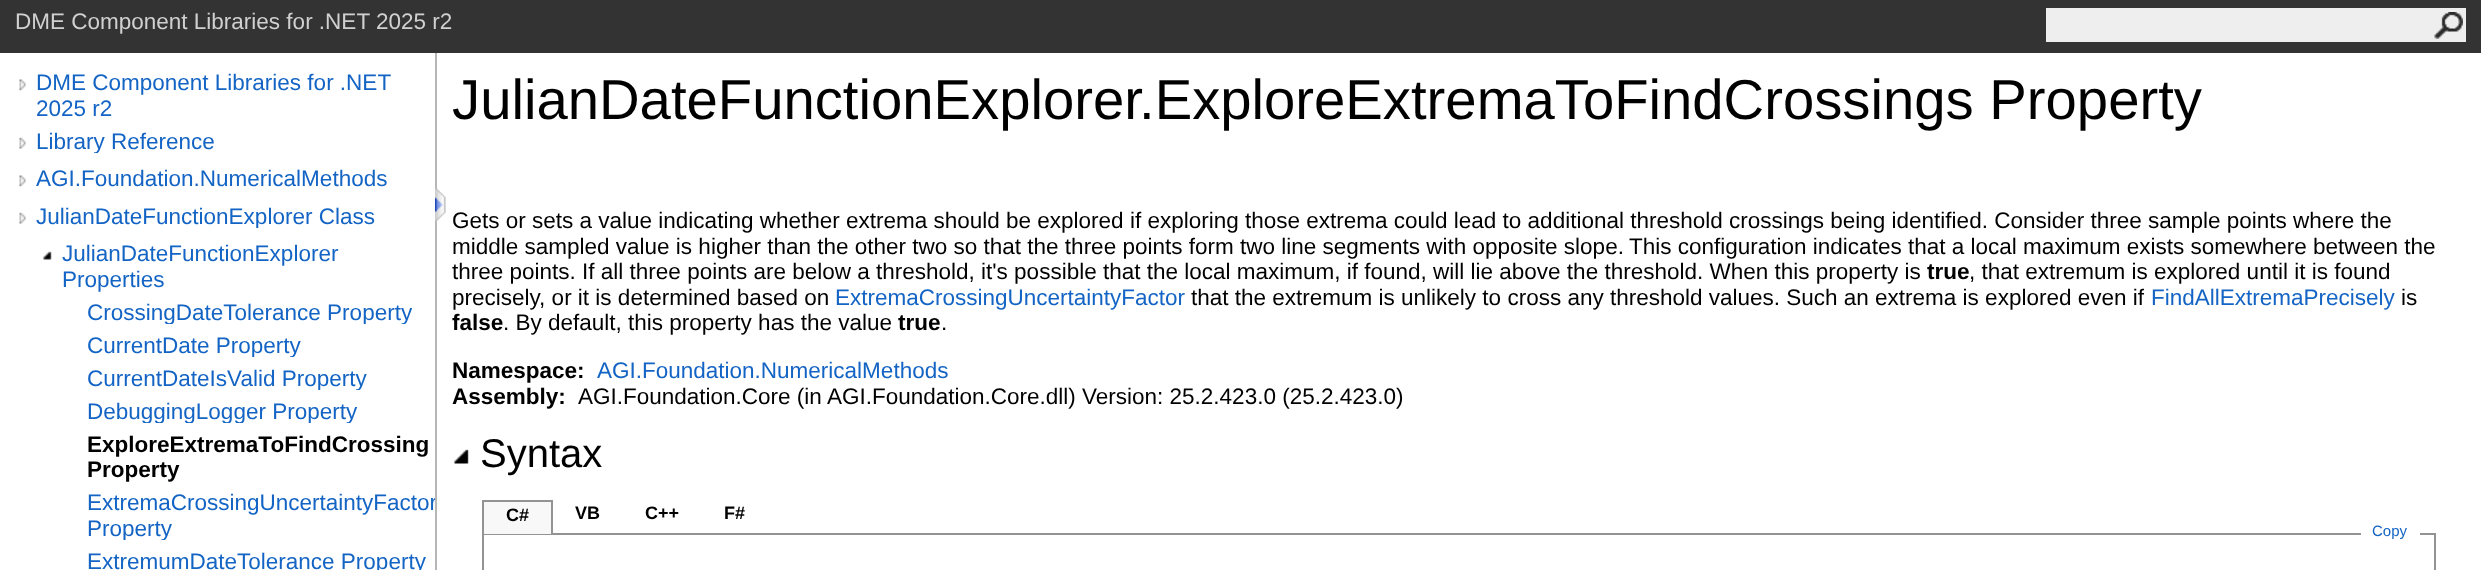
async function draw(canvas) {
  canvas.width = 2481
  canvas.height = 570
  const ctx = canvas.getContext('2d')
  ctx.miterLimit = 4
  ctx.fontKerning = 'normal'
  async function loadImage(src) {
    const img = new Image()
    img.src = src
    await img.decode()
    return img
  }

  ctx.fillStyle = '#fff'
  ctx.fillRect(0, 0, 2481, 570)
  ctx.fillStyle = '#333'
  ctx.fillRect(0, 0, 2481, 53)
  ctx.font = '22.5px Liberation Sans'
  ctx.fillStyle = '#d0d0d0'
  ctx.fillText('DME Component Libraries for .NET 2025 r2', 15, 29)
  ctx.fillStyle = '#eee'
  ctx.fillRect(2046, 8, 420, 34)
  ctx.drawImage(await loadImage('image0.png'), 2434, 12, 29, 27)
  ctx.fillStyle = '#b6b6b6'
  ctx.fillRect(435, 53, 2, 517)
  ctx.drawImage(await loadImage('image1.png'), 19, 79, 7, 12)
  ctx.fillStyle = '#1364c4'
  ctx.fillText('DME Component Libraries for .NET', 36, 90)
  ctx.fillText('2025 r2', 36, 116)
  ctx.drawImage(await loadImage('image2.png'), 19, 137, 7, 12)
  ctx.save()
  ctx.beginPath()
  ctx.rect(36, 128, 399, 25)
  ctx.clip()
  ctx.fillText('Library Reference', 36, 149)
  ctx.restore()
  ctx.drawImage(await loadImage('image1.png'), 19, 175, 7, 12)
  ctx.fillText('AGI.Foundation.NumericalMethods', 36, 186)
  ctx.drawImage(await loadImage('image2.png'), 19, 212, 7, 12)
  ctx.save()
  ctx.beginPath()
  ctx.rect(36, 203, 399, 25)
  ctx.clip()
  ctx.fillText('JulianDateFunctionExplorer Class', 36, 224)
  ctx.restore()
  ctx.drawImage(await loadImage('image3.png'), 43, 251, 9, 9)
  ctx.fillText('JulianDateFunctionExplorer', 62, 261)
  ctx.fillText('Properties', 62, 287)
  ctx.save()
  ctx.beginPath()
  ctx.rect(87, 299, 348, 25)
  ctx.clip()
  ctx.fillText('CrossingDateTolerance Property', 87, 320)
  ctx.restore()
  ctx.save()
  ctx.beginPath()
  ctx.rect(87, 332, 348, 25)
  ctx.clip()
  ctx.fillText('CurrentDate Property', 87, 353)
  ctx.restore()
  ctx.save()
  ctx.beginPath()
  ctx.rect(87, 365, 348, 25)
  ctx.clip()
  ctx.fillText('CurrentDateIsValid Property', 87, 386)
  ctx.restore()
  ctx.save()
  ctx.beginPath()
  ctx.rect(87, 398, 348, 25)
  ctx.clip()
  ctx.fillText('DebuggingLogger Property', 87, 419)
  ctx.restore()
  ctx.font = 'bold 22.5px Liberation Sans'
  ctx.fillStyle = '#000'
  ctx.fillText('ExploreExtremaToFindCrossing', 87, 452)
  ctx.fillText('Property', 87, 477)
  ctx.save()
  ctx.beginPath()
  ctx.rect(87, 489, 348, 51)
  ctx.clip()
  ctx.font = '22.5px Liberation Sans'
  ctx.fillStyle = '#1364c4'
  ctx.fillText('ExtremaCrossingUncertaintyFactor', 87, 510)
  ctx.fillText('Property', 87, 536)
  ctx.restore()
  ctx.font = '22.5px Liberation Sans'
  ctx.fillStyle = '#1364c4'
  ctx.fillText('ExtremumDateTolerance Property', 87, 569)
  ctx.drawImage(await loadImage('image4.png'), 435, 188, 11, 34)
  ctx.font = '56.25px Liberation Sans'
  ctx.fillStyle = '#000'
  ctx.fillText('JulianDateFunctionExplorer', 452, 119)
  ctx.fillText('.ExploreExtremaToFindCrossings Property', 1139, 119)
  ctx.font = '22.5px Liberation Sans'
  ctx.fillText('Gets or sets a value indicating whether extrema should be explored if exploring those extrema could lead to additional threshold crossings being identified. Consider three sample points where the', 452, 228)
  ctx.fillText('middle sampled value is higher than the other two so that the three points form two line segments with opposite slope.', 452, 254)
  ctx.fillText('This configuration indicates that a local maximum exists somewhere between the', 1629, 254)
  ctx.fillText('three points. If all three points are below a threshold, it\'s possible that the local maximum, if found, will lie above the threshold. When this property is', 452, 279)
  ctx.font = 'bold 22.5px Liberation Sans'
  ctx.fillText('true', 1927, 279)
  ctx.font = '22.5px Liberation Sans'
  ctx.fillText(', that extremum is explored until it is found', 1969, 279)
  ctx.fillText('precisely, or it is determined based on', 452, 305)
  ctx.fillStyle = '#1364c4'
  ctx.fillText('ExtremaCrossingUncertaintyFactor', 835, 305)
  ctx.fillStyle = '#000'
  ctx.fillText('that the extremum is unlikely to cross any threshold values. Such an extrema is explored even if', 1191, 305)
  ctx.fillStyle = '#1364c4'
  ctx.fillText('FindAllExtremaPrecisely', 2151, 305)
  ctx.fillStyle = '#000'
  ctx.fillText('is', 2401, 305)
  ctx.font = 'bold 22.5px Liberation Sans'
  ctx.fillText('false', 452, 330)
  ctx.font = '22.5px Liberation Sans'
  ctx.fillText('. By default, this property has the value', 503, 330)
  ctx.font = 'bold 22.5px Liberation Sans'
  ctx.fillText('true', 898, 330)
  ctx.font = '22.5px Liberation Sans'
  ctx.fillText('.', 941, 330)
  ctx.font = 'bold 22.5px Liberation Sans'
  ctx.fillText('Namespace:', 452, 378)
  ctx.font = '22.5px Liberation Sans'
  ctx.fillStyle = '#1364c4'
  ctx.fillText('AGI.Foundation.NumericalMethods', 597, 378)
  ctx.font = 'bold 22.5px Liberation Sans'
  ctx.fillStyle = '#000'
  ctx.fillText('Assembly:', 452, 404)
  ctx.font = '22.5px Liberation Sans'
  ctx.fillText('AGI.Foundation.Core (in AGI.Foundation.Core.dll) Version: 25.2.423.0 (25.2.423.0)', 578, 404)
  ctx.drawImage(await loadImage('image5.png'), 454, 449, 15, 15)
  ctx.font = '40px Liberation Sans'
  ctx.fillText('Syntax', 480, 467)
  ctx.strokeStyle = '#939393'
  ctx.lineWidth = 2
  ctx.strokeRect(483, 534, 1952, 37)
  ctx.fillStyle = '#f8f8f8'
  ctx.fillRect(484, 502, 67, 32)
  ctx.fillStyle = '#939393'
  ctx.fillRect(482, 500, 70, 2)
  ctx.fillRect(551, 500, 2, 34)
  ctx.fillRect(482, 500, 2, 34)
  ctx.font = 'bold 18px Liberation Sans'
  ctx.fillStyle = '#000'
  ctx.fillText('C#', 506, 521)
  ctx.fillText('VB', 575, 519)
  ctx.fillText('C++', 645, 519)
  ctx.fillText('F#', 724, 519)
  ctx.fillStyle = '#fff'
  ctx.fillRect(2361, 533, 59, 2)
  ctx.font = '15px Liberation Sans'
  ctx.fillStyle = '#1364c4'
  ctx.fillText('Copy', 2372, 536)
}

draw(document.querySelector('canvas'))
